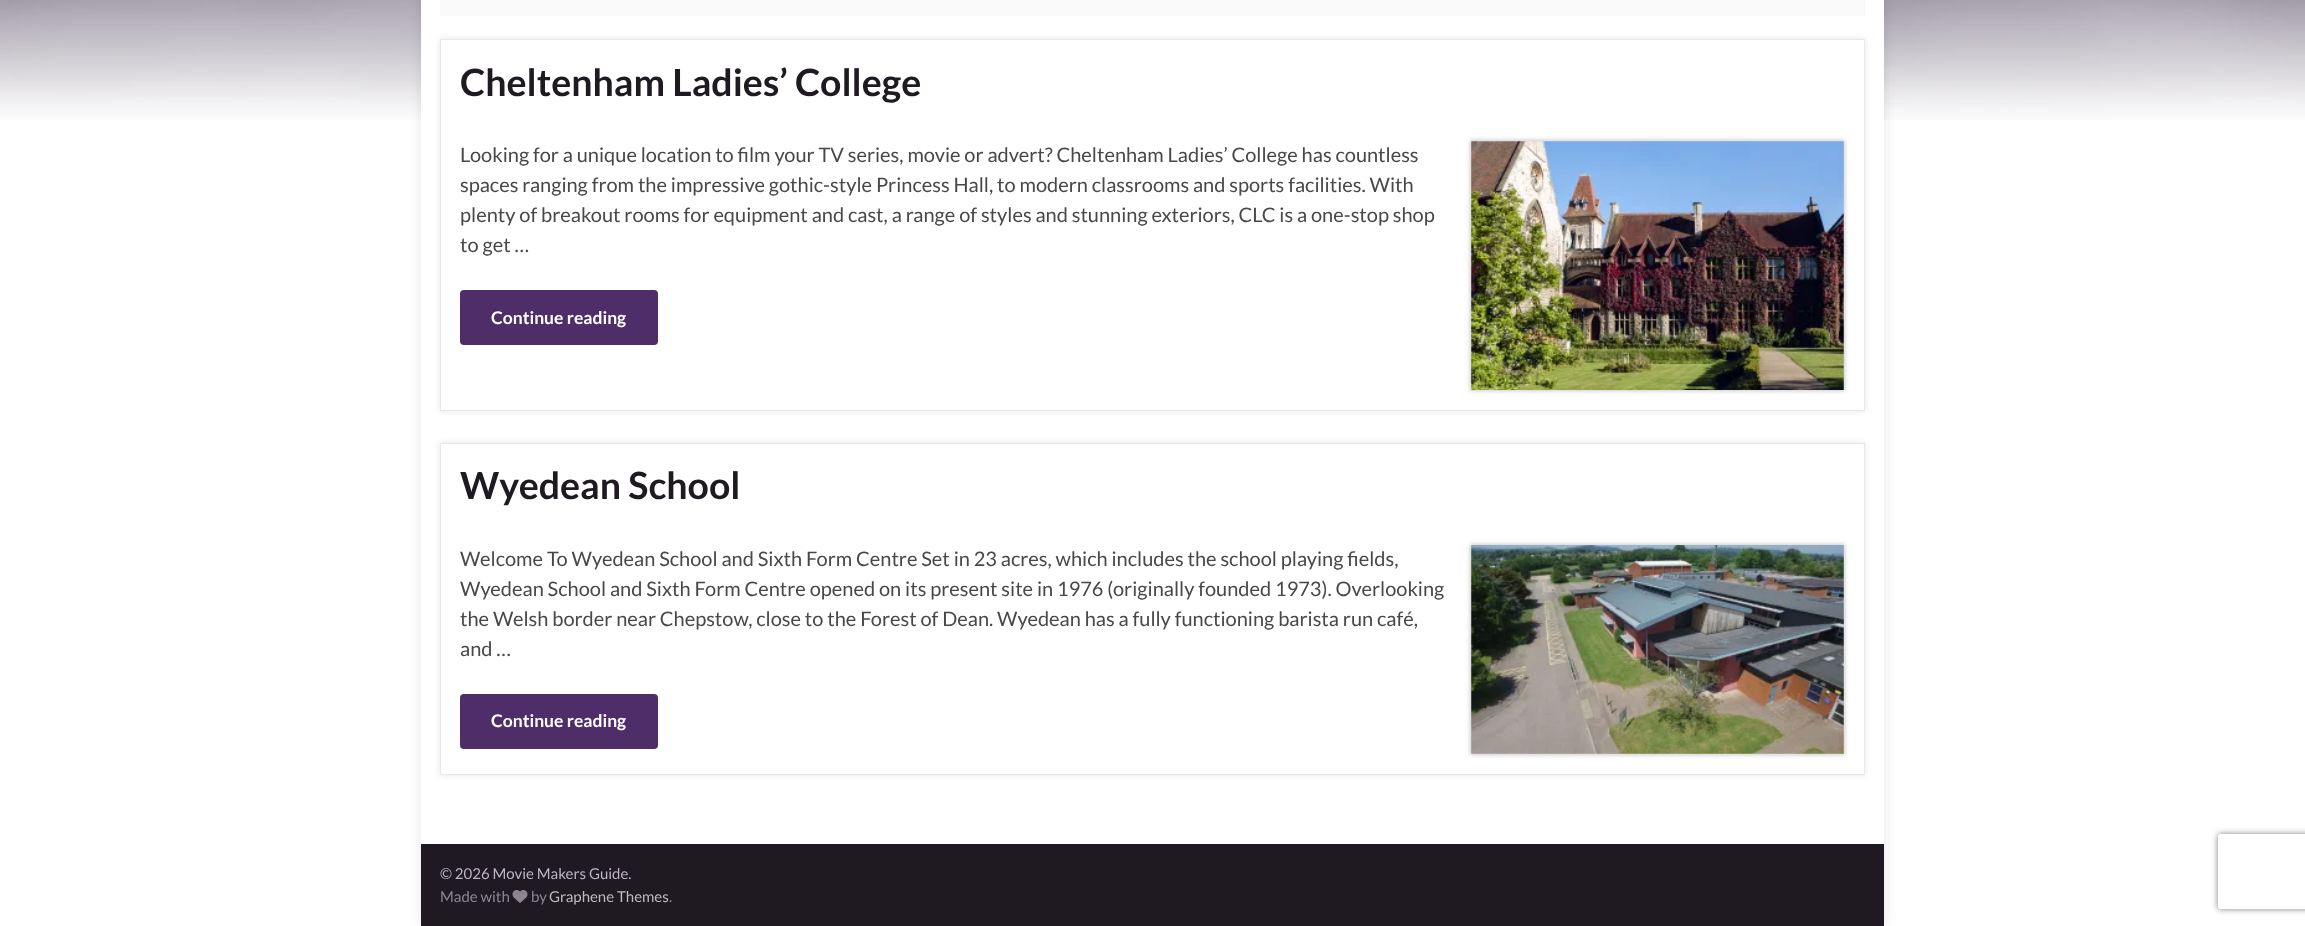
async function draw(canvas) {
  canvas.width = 2305
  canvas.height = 926
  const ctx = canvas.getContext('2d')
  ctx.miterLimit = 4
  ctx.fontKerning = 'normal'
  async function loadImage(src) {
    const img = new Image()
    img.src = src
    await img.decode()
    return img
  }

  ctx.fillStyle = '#fff'
  ctx.fillRect(0, 0, 2305, 926)
  ctx.drawImage(await loadImage('image0.png'), 0, 0, 2305, 120)
  ctx.fillStyle = '#0000001a'
  ctx.filter = 'blur(6px)'
  ctx.beginPath()
  ctx.rect(421, -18, 1463, 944)
  ctx.fill()
  ctx.filter = 'none'
  ctx.fillStyle = '#fff'
  ctx.fillRect(421, 0, 1463, 844)
  ctx.fillStyle = '#f9f9f9'
  ctx.fillRect(440, 0, 1425, 16)
  ctx.save()
  ctx.beginPath()
  ctx.moveTo(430, 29)
  ctx.lineTo(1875, 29)
  ctx.lineTo(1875, 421)
  ctx.lineTo(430, 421)
  ctx.closePath()
  ctx.moveTo(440, 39)
  ctx.lineTo(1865, 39)
  ctx.lineTo(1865, 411)
  ctx.lineTo(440, 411)
  ctx.closePath()
  ctx.clip('evenodd')
  ctx.fillStyle = '#0000001a'
  ctx.filter = 'blur(3px)'
  ctx.beginPath()
  ctx.rect(440, 39, 1425, 372)
  ctx.fill()
  ctx.filter = 'none'
  ctx.restore()
  ctx.strokeStyle = '#e9e8e3'
  ctx.strokeRect(440.5, 39.5, 1424, 371)
  ctx.font = 'bold 37.5px Lato'
  ctx.fillStyle = '#1f1a22'
  ctx.fillText('Cheltenham Ladies’ College', 460, 96)
  ctx.font = '20px Lato'
  ctx.fillStyle = '#4a474b'
  ctx.fillText('Looking for a unique location to film your TV series, movie or advert? Cheltenham Ladies’ College has countless', 460, 162)
  ctx.fillText('spaces ranging from the impressive gothic-style Princess Hall, to modern classrooms and sports facilities. With', 460, 192)
  ctx.fillText('plenty of breakout rooms for equipment and cast, a range of styles and stunning exteriors, CLC is a one-stop shop', 460, 222)
  ctx.fillText('to get …', 460, 252)
  ctx.fillStyle = '#00000033'
  ctx.filter = 'blur(2px)'
  ctx.beginPath()
  ctx.rect(1470, 140, 375, 251)
  ctx.fill()
  ctx.filter = 'none'
  ctx.drawImage(await loadImage('image1.png'), 1471, 141, 373, 249)
  ctx.fillStyle = '#4f2d69'
  ctx.beginPath()
  ctx.roundRect(460, 290, 198, 55, 4)
  ctx.fill()
  ctx.font = 'bold 17.5px Lato'
  ctx.fillStyle = '#fff'
  ctx.fillText('Continue reading', 491, 324)
  ctx.save()
  ctx.beginPath()
  ctx.moveTo(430, 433)
  ctx.lineTo(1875, 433)
  ctx.lineTo(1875, 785)
  ctx.lineTo(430, 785)
  ctx.closePath()
  ctx.moveTo(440, 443)
  ctx.lineTo(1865, 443)
  ctx.lineTo(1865, 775)
  ctx.lineTo(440, 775)
  ctx.closePath()
  ctx.clip('evenodd')
  ctx.fillStyle = '#0000001a'
  ctx.filter = 'blur(3px)'
  ctx.beginPath()
  ctx.rect(440, 443, 1425, 332)
  ctx.fill()
  ctx.filter = 'none'
  ctx.restore()
  ctx.strokeRect(440.5, 443.5, 1424, 331)
  ctx.font = 'bold 37.5px Lato'
  ctx.fillStyle = '#1f1a22'
  ctx.fillText('Wyedean School', 460, 499)
  ctx.font = '20px Lato'
  ctx.fillStyle = '#4a474b'
  ctx.fillText('Welcome To Wyedean School and Sixth Form Centre Set in 23 acres, which includes the school playing fields,', 460, 566)
  ctx.fillText('Wyedean School and Sixth Form Centre opened on its present site in 1976 (originally founded 1973). Overlooking', 460, 596)
  ctx.fillText('the Welsh border near Chepstow, close to the Forest of Dean. Wyedean has a fully functioning barista run café,', 460, 626)
  ctx.fillText('and …', 460, 656)
  ctx.fillStyle = '#00000033'
  ctx.filter = 'blur(2px)'
  ctx.beginPath()
  ctx.rect(1470, 544, 375, 211)
  ctx.fill()
  ctx.filter = 'none'
  ctx.drawImage(await loadImage('image2.png'), 1471, 545, 373, 209)
  ctx.fillStyle = '#4f2d69'
  ctx.beginPath()
  ctx.roundRect(460, 694, 198, 55, 4)
  ctx.fill()
  ctx.font = 'bold 17.5px Lato'
  ctx.fillStyle = '#fff'
  ctx.fillText('Continue reading', 491, 727)
  ctx.fillStyle = '#1f1a22'
  ctx.fillRect(421, 844, 1463, 82)
  ctx.font = '15px Lato'
  ctx.fillStyle = '#bcb4c1'
  ctx.fillText('© 2026 Movie Makers Guide.', 440, 879)
  ctx.fillStyle = '#8d8691'
  ctx.fillText('Made with', 440, 902)
  ctx.drawImage(await loadImage('image3.png'), 512, 890, 16, 13)
  ctx.fillText('by', 531, 902)
  ctx.fillStyle = '#bcbabd'
  ctx.fillText('Graphene Themes', 549, 902)
  ctx.fillStyle = '#8d8691'
  ctx.fillText('.', 669, 902)
  ctx.save()
  ctx.beginPath()
  ctx.moveTo(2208, 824)
  ctx.lineTo(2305, 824)
  ctx.lineTo(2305, 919)
  ctx.lineTo(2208, 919)
  ctx.closePath()
  ctx.moveTo(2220.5, 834)
  ctx.lineTo(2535.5, 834)
  ctx.bezierCurveTo(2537, 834, 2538, 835, 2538, 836.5)
  ctx.lineTo(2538, 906.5)
  ctx.bezierCurveTo(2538, 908, 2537, 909, 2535.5, 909)
  ctx.lineTo(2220.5, 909)
  ctx.bezierCurveTo(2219, 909, 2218, 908, 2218, 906.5)
  ctx.lineTo(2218, 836.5)
  ctx.bezierCurveTo(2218, 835, 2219, 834, 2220.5, 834)
  ctx.closePath()
  ctx.clip('evenodd')
  ctx.fillStyle = '#808080'
  ctx.filter = 'blur(3px)'
  ctx.beginPath()
  ctx.roundRect(2218, 834, 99, 75, 2.5)
  ctx.fill()
  ctx.filter = 'none'
  ctx.restore()
}

draw(document.querySelector('canvas'))
